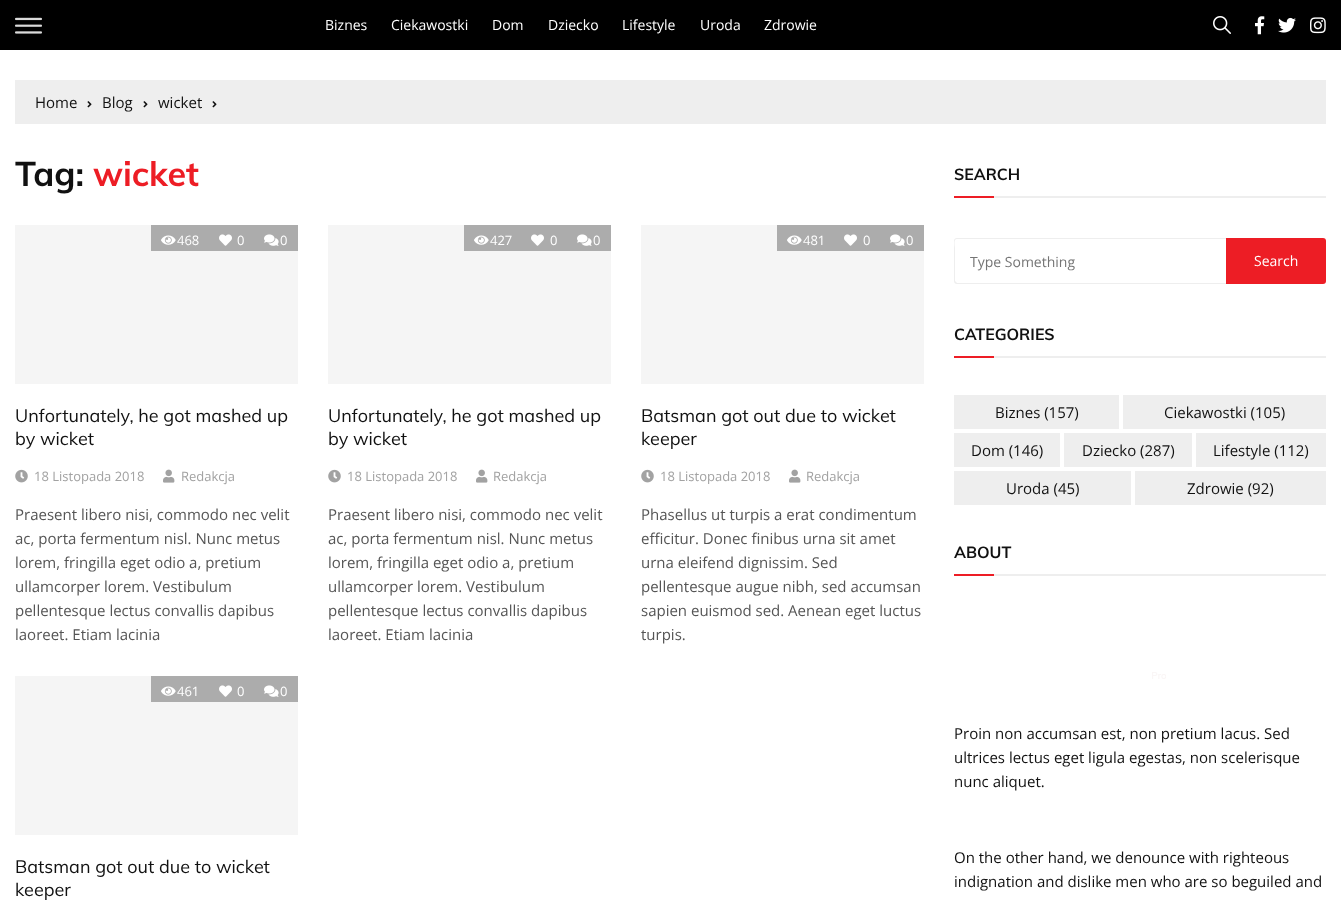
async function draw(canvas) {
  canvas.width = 1341
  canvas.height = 901
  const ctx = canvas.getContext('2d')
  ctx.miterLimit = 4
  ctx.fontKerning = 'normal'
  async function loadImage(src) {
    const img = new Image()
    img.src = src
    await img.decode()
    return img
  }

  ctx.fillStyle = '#fff'
  ctx.fillRect(0, 0, 1341, 901)
  ctx.fillStyle = '#000'
  ctx.fillRect(0, 0, 1341, 50)
  ctx.drawImage(await loadImage('image0.png'), 15, 17, 27, 17)
  ctx.font = '14px Open Sans'
  ctx.fillStyle = '#fff'
  ctx.fillText('Biznes', 325, 30)
  ctx.fillText('Ciekawostki', 391, 30)
  ctx.fillText('Dom', 492, 30)
  ctx.fillText('Dziecko', 548, 30)
  ctx.fillText('Lifestyle', 622, 30)
  ctx.fillText('Uroda', 700, 30)
  ctx.fillText('Zdrowie', 764, 30)
  ctx.drawImage(await loadImage('image1.png'), 1213, 16, 18, 18)
  ctx.drawImage(await loadImage('image2.png'), 1255, 16, 10, 19)
  ctx.drawImage(await loadImage('image3.png'), 1278, 17, 18, 16)
  ctx.drawImage(await loadImage('image4.png'), 1310, 17, 16, 17)
  ctx.fillStyle = '#eee'
  ctx.fillRect(15, 80, 1311, 44)
  ctx.font = '15px Open Sans'
  ctx.fillStyle = '#111'
  ctx.fillText('Home', 35, 108)
  ctx.drawImage(await loadImage('image5.png'), 87, 101, 5, 7)
  ctx.fillText('Blog', 102, 108)
  ctx.drawImage(await loadImage('image5.png'), 143, 101, 5, 7)
  ctx.fillText('wicket', 158, 108)
  ctx.drawImage(await loadImage('image5.png'), 212, 101, 5, 7)
  ctx.font = 'bold 34px Muli'
  ctx.fillText('Tag:', 15, 186)
  ctx.fillStyle = '#ed1d25'
  ctx.fillText('wicket', 93, 186)
  ctx.fillStyle = '#f5f5f5'
  ctx.fillRect(15, 225, 283, 159)
  ctx.fillStyle = '#acacac'
  ctx.fillRect(151, 225, 147, 26)
  ctx.drawImage(await loadImage('image6.png'), 161, 235, 15, 10)
  ctx.font = '13px Open Sans'
  ctx.fillStyle = '#fff'
  ctx.fillText('468', 177, 245)
  ctx.drawImage(await loadImage('image7.png'), 219, 234, 13, 12)
  ctx.fillText('0', 237, 245)
  ctx.drawImage(await loadImage('image8.png'), 264, 234, 15, 12)
  ctx.fillText('0', 280, 245)
  ctx.font = '18px Muli'
  ctx.fillStyle = '#111'
  ctx.fillText('Unfortunately, he got mashed up', 15, 422)
  ctx.fillText('by wicket', 15, 445)
  ctx.drawImage(await loadImage('image9.png'), 15, 469, 13, 14)
  ctx.font = '13px Open Sans'
  ctx.fillStyle = '#a2a2a2'
  ctx.fillText('18 Listopada 2018', 34, 481)
  ctx.drawImage(await loadImage('image10.png'), 163, 469, 12, 14)
  ctx.fillText('Redakcja', 181, 481)
  ctx.font = '15px Open Sans'
  ctx.fillStyle = '#555'
  ctx.fillText('Praesent libero nisi, commodo nec velit', 15, 520)
  ctx.fillText('ac, porta fermentum nisl. Nunc metus', 15, 544)
  ctx.fillText('lorem, fringilla eget odio a, pretium', 15, 568)
  ctx.fillText('ullamcorper lorem. Vestibulum', 15, 592)
  ctx.fillText('pellentesque lectus convallis dapibus', 15, 616)
  ctx.fillText('laoreet. Etiam lacinia', 15, 640)
  ctx.fillStyle = '#f5f5f5'
  ctx.fillRect(328, 225, 283, 159)
  ctx.fillStyle = '#acacac'
  ctx.fillRect(464, 225, 147, 26)
  ctx.drawImage(await loadImage('image6.png'), 474, 235, 15, 10)
  ctx.font = '13px Open Sans'
  ctx.fillStyle = '#fff'
  ctx.fillText('427', 490, 245)
  ctx.drawImage(await loadImage('image7.png'), 531, 234, 13, 12)
  ctx.fillText('0', 550, 245)
  ctx.drawImage(await loadImage('image8.png'), 577, 234, 15, 12)
  ctx.fillText('0', 593, 245)
  ctx.font = '18px Muli'
  ctx.fillStyle = '#111'
  ctx.fillText('Unfortunately, he got mashed up', 328, 422)
  ctx.fillText('by wicket', 328, 445)
  ctx.drawImage(await loadImage('image9.png'), 328, 469, 13, 14)
  ctx.font = '13px Open Sans'
  ctx.fillStyle = '#a2a2a2'
  ctx.fillText('18 Listopada 2018', 347, 481)
  ctx.drawImage(await loadImage('image10.png'), 476, 469, 12, 14)
  ctx.fillText('Redakcja', 493, 481)
  ctx.font = '15px Open Sans'
  ctx.fillStyle = '#555'
  ctx.fillText('Praesent libero nisi, commodo nec velit', 328, 520)
  ctx.fillText('ac, porta fermentum nisl. Nunc metus', 328, 544)
  ctx.fillText('lorem, fringilla eget odio a, pretium', 328, 568)
  ctx.fillText('ullamcorper lorem. Vestibulum', 328, 592)
  ctx.fillText('pellentesque lectus convallis dapibus', 328, 616)
  ctx.fillText('laoreet. Etiam lacinia', 328, 640)
  ctx.fillStyle = '#f5f5f5'
  ctx.fillRect(641, 225, 283, 159)
  ctx.fillStyle = '#acacac'
  ctx.fillRect(777, 225, 147, 26)
  ctx.drawImage(await loadImage('image6.png'), 787, 235, 15, 10)
  ctx.font = '13px Open Sans'
  ctx.fillStyle = '#fff'
  ctx.fillText('481', 803, 245)
  ctx.drawImage(await loadImage('image7.png'), 844, 234, 13, 12)
  ctx.fillText('0', 863, 245)
  ctx.drawImage(await loadImage('image8.png'), 890, 234, 15, 12)
  ctx.fillText('0', 906, 245)
  ctx.font = '18px Muli'
  ctx.fillStyle = '#111'
  ctx.fillText('Batsman got out due to wicket', 641, 422)
  ctx.fillText('keeper', 641, 445)
  ctx.drawImage(await loadImage('image9.png'), 641, 469, 13, 14)
  ctx.font = '13px Open Sans'
  ctx.fillStyle = '#a2a2a2'
  ctx.fillText('18 Listopada 2018', 660, 481)
  ctx.drawImage(await loadImage('image10.png'), 789, 469, 12, 14)
  ctx.fillText('Redakcja', 806, 481)
  ctx.font = '15px Open Sans'
  ctx.fillStyle = '#555'
  ctx.fillText('Phasellus ut turpis a erat condimentum', 641, 520)
  ctx.fillText('efficitur. Donec finibus urna sit amet', 641, 544)
  ctx.fillText('urna eleifend dignissim. Sed', 641, 568)
  ctx.fillText('pellentesque augue nibh, sed accumsan', 641, 592)
  ctx.fillText('sapien euismod sed. Aenean eget luctus', 641, 616)
  ctx.fillText('turpis.', 641, 640)
  ctx.fillStyle = '#f5f5f5'
  ctx.fillRect(15, 676, 283, 159)
  ctx.fillStyle = '#acacac'
  ctx.fillRect(151, 676, 147, 26)
  ctx.drawImage(await loadImage('image6.png'), 161, 686, 15, 10)
  ctx.font = '13px Open Sans'
  ctx.fillStyle = '#fff'
  ctx.fillText('461', 177, 696)
  ctx.drawImage(await loadImage('image7.png'), 219, 685, 13, 12)
  ctx.fillText('0', 237, 696)
  ctx.drawImage(await loadImage('image8.png'), 264, 685, 15, 12)
  ctx.fillText('0', 280, 696)
  ctx.font = '18px Muli'
  ctx.fillStyle = '#111'
  ctx.fillText('Batsman got out due to wicket', 15, 873)
  ctx.fillText('keeper', 15, 896)
  ctx.fillStyle = '#eee'
  ctx.fillRect(994, 196, 332, 2)
  ctx.font = 'bold 16px Muli'
  ctx.fillStyle = '#111'
  ctx.fillText('SEARCH', 954, 180)
  ctx.fillStyle = '#ed1d25'
  ctx.fillRect(954, 196, 40, 2)
  ctx.fillStyle = '#eee'
  ctx.beginPath()
  ctx.moveTo(957, 238)
  ctx.lineTo(1226, 238)
  ctx.lineTo(1226, 284)
  ctx.lineTo(957, 284)
  ctx.bezierCurveTo(955, 284, 954, 283, 954, 281)
  ctx.lineTo(954, 241)
  ctx.bezierCurveTo(954, 239, 955, 238, 957, 238)
  ctx.closePath()
  ctx.moveTo(957, 239)
  ctx.lineTo(1226, 239)
  ctx.lineTo(1226, 283)
  ctx.lineTo(957, 283)
  ctx.lineTo(955, 281)
  ctx.lineTo(955, 248)
  ctx.bezierCurveTo(955, 247, 953, 239, 957, 239)
  ctx.closePath()
  ctx.fill('evenodd')
  ctx.font = '14px Open Sans'
  ctx.fillStyle = '#757575'
  ctx.fillText('Type Something', 970, 267)
  ctx.fillStyle = '#ed1d25'
  ctx.beginPath()
  ctx.roundRect(1226, 238, 100, 46, [0, 3, 3, 0])
  ctx.fill()
  ctx.fillStyle = '#fff'
  ctx.fillText('Search', 1254, 266)
  ctx.fillStyle = '#eee'
  ctx.fillRect(994, 356, 332, 2)
  ctx.font = 'bold 16px Muli'
  ctx.fillStyle = '#111'
  ctx.fillText('CATEGORIES', 954, 340)
  ctx.fillStyle = '#ed1d25'
  ctx.fillRect(954, 356, 40, 2)
  ctx.fillStyle = '#eee'
  ctx.fillRect(954, 395, 165, 34)
  ctx.font = '15px Open Sans'
  ctx.fillStyle = '#111'
  ctx.fillText('Biznes (157)', 995, 418)
  ctx.fillStyle = '#eee'
  ctx.fillRect(1123, 395, 203, 34)
  ctx.fillStyle = '#111'
  ctx.fillText('Ciekawostki (105)', 1164, 418)
  ctx.fillStyle = '#eee'
  ctx.fillRect(954, 433, 106, 34)
  ctx.fillStyle = '#111'
  ctx.fillText('Dom (146)', 971, 456)
  ctx.fillStyle = '#eee'
  ctx.fillRect(1064, 433, 128, 34)
  ctx.fillStyle = '#111'
  ctx.fillText('Dziecko (287)', 1082, 456)
  ctx.fillStyle = '#eee'
  ctx.fillRect(1196, 433, 130, 34)
  ctx.fillStyle = '#111'
  ctx.fillText('Lifestyle (112)', 1213, 456)
  ctx.fillStyle = '#eee'
  ctx.fillRect(954, 471, 177, 34)
  ctx.fillStyle = '#111'
  ctx.fillText('Uroda (45)', 1006, 494)
  ctx.fillStyle = '#eee'
  ctx.fillRect(1135, 471, 191, 34)
  ctx.fillStyle = '#111'
  ctx.fillText('Zdrowie (92)', 1187, 494)
  ctx.fillStyle = '#eee'
  ctx.fillRect(994, 574, 332, 2)
  ctx.font = 'bold 16px Muli'
  ctx.fillStyle = '#111'
  ctx.fillText('ABOUT', 954, 558)
  ctx.fillStyle = '#ed1d25'
  ctx.fillRect(954, 574, 40, 2)
  ctx.drawImage(await loadImage('image11.png'), 1152, 672, 14, 7)
  ctx.font = '15px Open Sans'
  ctx.fillStyle = '#111'
  ctx.fillText('Proin non accumsan est, non pretium lacus. Sed', 954, 739)
  ctx.fillText('ultrices lectus eget ligula egestas, non scelerisque', 954, 763)
  ctx.fillText('nunc aliquet.', 954, 787)
  ctx.fillText('On the other hand, we denounce with righteous', 954, 863)
  ctx.fillText('indignation and dislike men who are so beguiled and', 954, 887)
}

draw(document.querySelector('canvas'))
